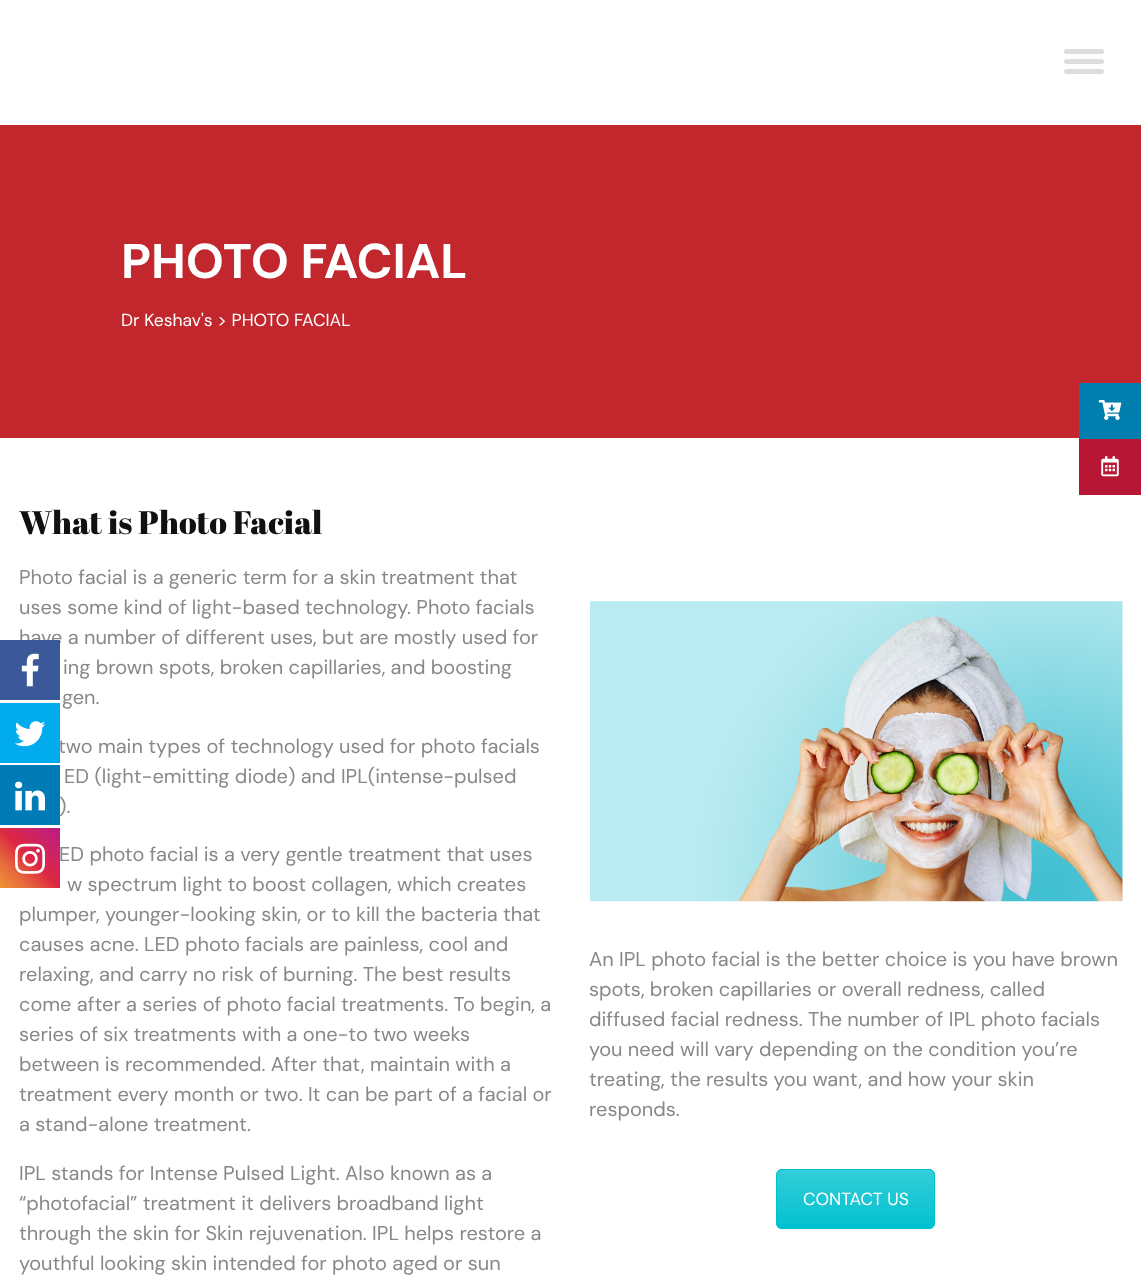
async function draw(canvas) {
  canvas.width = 1141
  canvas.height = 1275
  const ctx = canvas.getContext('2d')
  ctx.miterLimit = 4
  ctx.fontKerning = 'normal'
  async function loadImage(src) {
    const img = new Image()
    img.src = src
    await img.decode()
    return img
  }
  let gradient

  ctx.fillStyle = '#fff'
  ctx.fillRect(0, 0, 1141, 1275)
  ctx.fillStyle = '#ddd'
  ctx.beginPath()
  ctx.roundRect(1064, 49, 40, 5, 2.5)
  ctx.fill()
  ctx.beginPath()
  ctx.roundRect(1064, 59, 40, 5, 2.5)
  ctx.fill()
  ctx.beginPath()
  ctx.roundRect(1064, 69, 40, 5, 2.5)
  ctx.fill()
  ctx.fillStyle = '#c1272d'
  ctx.fillRect(0, 125, 1141, 313)
  ctx.font = 'bold 48.75px DM Sans'
  ctx.fillStyle = '#fff'
  ctx.fillText('PHOTO FACIAL', 121, 278)
  ctx.font = '17.5px DM Sans'
  ctx.fillText('Dr Keshav\'s > PHOTO FACIAL', 121, 326)
  ctx.font = '32.5px Abril Fatface'
  ctx.fillStyle = '#111'
  ctx.fillText('What is Photo Facial', 19, 534)
  ctx.font = '20px DM Sans'
  ctx.fillStyle = '#888'
  ctx.fillText('Photo facial is a generic term for a skin treatment that', 19, 584)
  ctx.fillText('uses some kind of light-based technology. Photo facials', 19, 614)
  ctx.fillText('have a number of different uses, but are mostly used for', 19, 644)
  ctx.fillText('ing brown spots, broken capillaries, and boosting', 63, 674)
  ctx.fillText('gen.', 62, 704)
  ctx.fillText('two main types of technology used for photo facials', 58, 753)
  ctx.fillText('ED (light-emitting diode) and IPL(intense-pulsed', 64, 783)
  ctx.fillText(').', 59, 813)
  ctx.fillText('ED photo facial is a very gentle treatment that uses', 59, 861)
  ctx.fillText('w spectrum light to boost collagen, which creates', 67, 891)
  ctx.fillText('plumper, younger-looking skin, or to kill the bacteria that', 19, 921)
  ctx.fillText('causes acne. LED photo facials are painless, cool and', 19, 951)
  ctx.fillText('relaxing, and carry no risk of burning. The best results', 19, 981)
  ctx.fillText('come after a series of photo facial treatments. To begin, a', 19, 1011)
  ctx.fillText('series of six treatments with a one-to two weeks', 19, 1041)
  ctx.fillText('between is recommended. After that, maintain with a', 19, 1071)
  ctx.fillText('treatment every month or two. It can be part of a facial or', 19, 1101)
  ctx.fillText('a stand-alone treatment.', 19, 1131)
  ctx.fillText('IPL stands for Intense Pulsed Light. Also known as a', 19, 1180)
  ctx.fillText('“photofacial” treatment it delivers broadband light', 19, 1210)
  ctx.fillText('through the skin for Skin rejuvenation. IPL helps restore a', 19, 1240)
  ctx.fillText('youthful looking skin intended for photo aged or sun', 19, 1270)
  ctx.drawImage(await loadImage('image0.png'), 590, 601, 533, 301)
  ctx.fillText('An IPL photo facial is the better choice is you have brown', 589, 966)
  ctx.fillText('spots, broken capillaries or overall redness, called', 589, 996)
  ctx.fillText('diffused facial redness. The number of IPL photo facials', 589, 1026)
  ctx.fillText('you need will vary depending on the condition you’re', 589, 1056)
  ctx.fillText('treating, the results you want, and how your skin', 589, 1086)
  ctx.fillText('responds.', 589, 1116)
  ctx.fillStyle = '#00c1cf'
  ctx.beginPath()
  ctx.roundRect(776, 1169, 159, 60, 6)
  ctx.fill()
  ctx.save()
  ctx.beginPath()
  ctx.roundRect(776, 1169, 159, 60, 6)
  ctx.clip()
  gradient = ctx.createLinearGradient(856, 1170, 856, 1228)
  gradient.addColorStop(0, '#ffffff33')
  gradient.addColorStop(1, '#ffffff03')
  ctx.fillStyle = gradient
  ctx.fillRect(776, 1170, 159, 54)
  ctx.restore()
  ctx.beginPath()
  ctx.roundRect(776.5, 1169.5, 158, 59, 5.5)
  ctx.strokeStyle = '#00c1cf'
  ctx.stroke()
  ctx.font = '17.5px DM Sans'
  ctx.fillStyle = '#fff'
  ctx.fillText('CONTACT US', 803, 1205)
  ctx.fillStyle = '#007faf'
  ctx.fillRect(1079, 383, 62, 56)
  ctx.drawImage(await loadImage('image1.png'), 1098, 400, 24, 20)
  ctx.fillStyle = '#b81635'
  ctx.fillRect(1079, 439, 62, 56)
  ctx.drawImage(await loadImage('image2.png'), 1101, 456, 18, 21)
  ctx.fillStyle = '#3b5998'
  ctx.fillRect(0, 640, 60, 60)
  ctx.drawImage(await loadImage('image3.png'), 21, 653, 18, 34)
  ctx.fillStyle = '#00aced'
  ctx.fillRect(0, 703, 60, 60)
  ctx.drawImage(await loadImage('image4.png'), 14, 721, 32, 26)
  ctx.fillStyle = '#007bb6'
  ctx.fillRect(0, 765, 60, 60)
  ctx.drawImage(await loadImage('image5.png'), 15, 781, 30, 30)
  gradient = ctx.createLinearGradient(0, 888, 60, 828)
  gradient.addColorStop(0, '#f09433')
  gradient.addColorStop(0.25, '#e6683c')
  gradient.addColorStop(0.5, '#dc2743')
  gradient.addColorStop(0.75, '#cc2366')
  gradient.addColorStop(1, '#bc1888')
  ctx.fillStyle = gradient
  ctx.fillRect(0, 828, 60, 60)
  ctx.drawImage(await loadImage('image6.png'), 15, 843, 30, 31)
}

draw(document.querySelector('canvas'))
